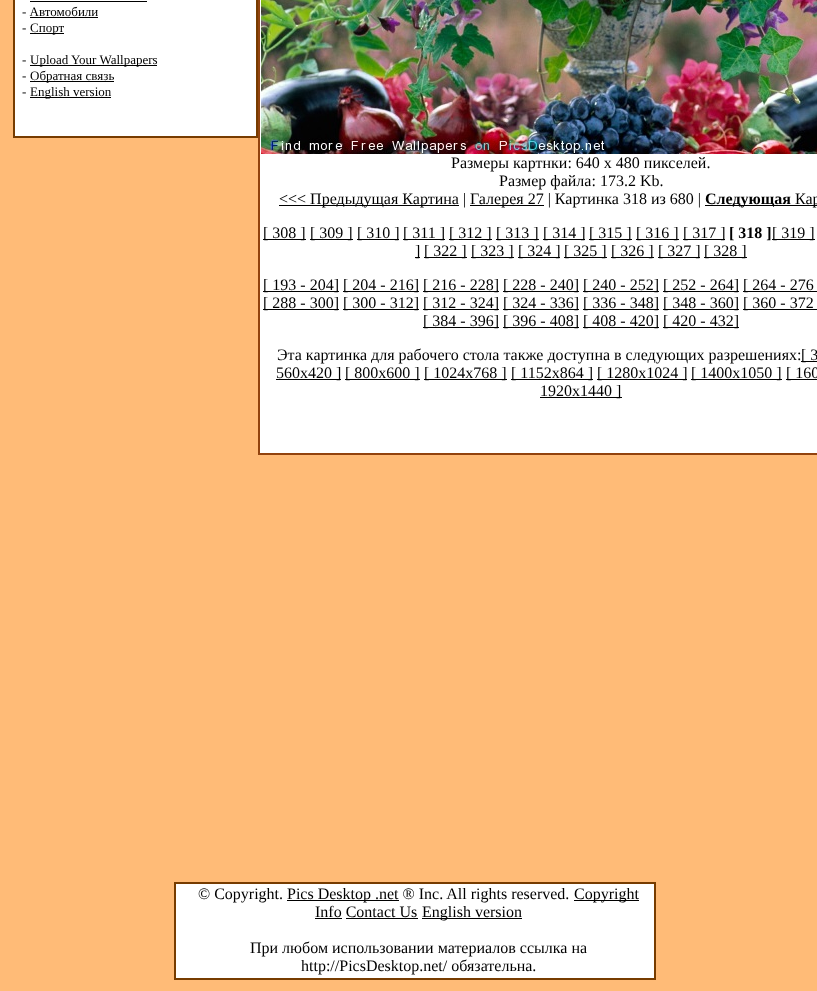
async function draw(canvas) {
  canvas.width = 817
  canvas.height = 991
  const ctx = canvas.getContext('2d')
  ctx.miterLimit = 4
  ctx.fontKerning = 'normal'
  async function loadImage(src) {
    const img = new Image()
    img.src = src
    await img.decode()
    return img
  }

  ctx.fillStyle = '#fb7'
  ctx.fillRect(0, 0, 817, 991)
  ctx.fillStyle = '#773c00'
  ctx.fillRect(13, 0, 245, 138)
  ctx.fillStyle = '#fff'
  ctx.fillRect(15, 0, 241, 136)
  ctx.fillStyle = '#000'
  ctx.fillRect(30, 1, 117, 1)
  ctx.font = '13px Liberation Serif'
  ctx.fillText('- Автомобили', 22, 16)
  ctx.fillRect(30, 17, 68, 1)
  ctx.fillText('-', 22, 32)
  ctx.fillRect(30, 33, 34, 1)
  ctx.fillText('Спорт', 30, 32)
  ctx.fillText('-', 22, 64)
  ctx.fillRect(30, 65, 127, 1)
  ctx.fillText('Upload Your Wallpapers', 30, 64)
  ctx.fillText('-', 22, 80)
  ctx.fillRect(30, 81, 84, 1)
  ctx.fillText('Обратная связь', 30, 80)
  ctx.fillText('-', 22, 96)
  ctx.fillRect(30, 97, 81, 1)
  ctx.fillText('English version', 30, 96)
  ctx.fillStyle = '#92430e'
  ctx.fillRect(258, 0, 559, 455)
  ctx.fillStyle = '#fff'
  ctx.fillRect(260, 0, 557, 453)
  ctx.drawImage(await loadImage('image0.png'), 261, 0, 556, 154)
  ctx.font = '16px Liberation Serif'
  ctx.fillStyle = '#000'
  ctx.fillText('Размеры картнки: 640 x 480 пикселей.', 451, 168)
  ctx.fillText('Размер файла: 173.2 Kb.', 499, 186)
  ctx.fillRect(279, 205, 180, 1)
  ctx.fillText('<<< Предыдущая Картина |', 279, 204)
  ctx.fillRect(470, 205, 74, 1)
  ctx.fillText('Галерея 27 | Картинка 318 из 680 |', 470, 204)
  ctx.fillRect(705, 205, 112, 1)
  ctx.font = 'bold 16px Liberation Serif'
  ctx.fillText('Следующая', 705, 204)
  ctx.font = '16px Liberation Serif'
  ctx.fillText('Кар', 795, 204)
  ctx.fillRect(263, 239, 43, 1)
  ctx.fillText('[ 308 ]', 263, 238)
  ctx.fillRect(310, 239, 43, 1)
  ctx.fillText('[ 309 ]', 310, 238)
  ctx.fillRect(357, 239, 42, 1)
  ctx.fillText('[ 310 ]', 357, 238)
  ctx.fillRect(403, 239, 42, 1)
  ctx.fillText('[ 311 ]', 403, 238)
  ctx.fillRect(449, 239, 43, 1)
  ctx.fillText('[ 312 ]', 449, 238)
  ctx.fillRect(496, 239, 43, 1)
  ctx.fillText('[ 313 ]', 496, 238)
  ctx.fillRect(543, 239, 42, 1)
  ctx.fillText('[ 314 ]', 543, 238)
  ctx.fillRect(589, 239, 43, 1)
  ctx.fillText('[ 315 ]', 589, 238)
  ctx.fillRect(636, 239, 43, 1)
  ctx.fillText('[ 316 ]', 636, 238)
  ctx.fillRect(683, 239, 42, 1)
  ctx.fillText('[ 317 ]', 683, 238)
  ctx.font = 'bold 16px Liberation Serif'
  ctx.fillText('[ 318 ]', 729, 238)
  ctx.fillRect(772, 239, 43, 1)
  ctx.font = '16px Liberation Serif'
  ctx.fillText('[ 319 ]', 772, 238)
  ctx.fillRect(415, 257, 5, 1)
  ctx.fillText(']', 415, 256)
  ctx.fillRect(424, 257, 43, 1)
  ctx.fillText('[ 322 ]', 424, 256)
  ctx.fillRect(471, 257, 43, 1)
  ctx.fillText('[ 323 ]', 471, 256)
  ctx.fillRect(518, 257, 42, 1)
  ctx.fillText('[ 324 ]', 518, 256)
  ctx.fillRect(564, 257, 43, 1)
  ctx.fillText('[ 325 ]', 564, 256)
  ctx.fillRect(611, 257, 43, 1)
  ctx.fillText('[ 326 ]', 611, 256)
  ctx.fillRect(658, 257, 42, 1)
  ctx.fillText('[ 327 ]', 658, 256)
  ctx.fillRect(704, 257, 43, 1)
  ctx.fillText('[ 328 ]', 704, 256)
  ctx.fillRect(263, 291, 76, 1)
  ctx.fillText('[ 193 - 204]', 263, 290)
  ctx.fillRect(343, 291, 76, 1)
  ctx.fillText('[ 204 - 216]', 343, 290)
  ctx.fillRect(423, 291, 76, 1)
  ctx.fillText('[ 216 - 228]', 423, 290)
  ctx.fillRect(503, 291, 76, 1)
  ctx.fillText('[ 228 - 240]', 503, 290)
  ctx.fillRect(583, 291, 76, 1)
  ctx.fillText('[ 240 - 252]', 583, 290)
  ctx.fillRect(663, 291, 76, 1)
  ctx.fillText('[ 252 - 264]', 663, 290)
  ctx.fillRect(743, 291, 74, 1)
  ctx.fillText('[ 264 - 276', 743, 290)
  ctx.fillRect(263, 309, 76, 1)
  ctx.fillText('[ 288 - 300]', 263, 308)
  ctx.fillRect(343, 309, 76, 1)
  ctx.fillText('[ 300 - 312]', 343, 308)
  ctx.fillRect(423, 309, 76, 1)
  ctx.fillText('[ 312 - 324]', 423, 308)
  ctx.fillRect(503, 309, 76, 1)
  ctx.fillText('[ 324 - 336]', 503, 308)
  ctx.fillRect(583, 309, 76, 1)
  ctx.fillText('[ 336 - 348]', 583, 308)
  ctx.fillRect(663, 309, 76, 1)
  ctx.fillText('[ 348 - 360]', 663, 308)
  ctx.fillRect(743, 309, 74, 1)
  ctx.fillText('[ 360 - 372', 743, 308)
  ctx.fillRect(423, 327, 76, 1)
  ctx.fillText('[ 384 - 396]', 423, 326)
  ctx.fillRect(503, 327, 76, 1)
  ctx.fillText('[ 396 - 408]', 503, 326)
  ctx.fillRect(583, 327, 76, 1)
  ctx.fillText('[ 408 - 420]', 583, 326)
  ctx.fillRect(663, 327, 76, 1)
  ctx.fillText('[ 420 - 432]', 663, 326)
  ctx.fillText('Эта картинка для рабочего стола также доступна в следующих разрешениях:', 277, 360)
  ctx.fillRect(801, 361, 16, 1)
  ctx.fillText('[ 3', 801, 360)
  ctx.fillRect(276, 379, 65, 1)
  ctx.fillText('560x420 ]', 276, 378)
  ctx.fillRect(345, 379, 75, 1)
  ctx.fillText('[ 800x600 ]', 345, 378)
  ctx.fillRect(424, 379, 83, 1)
  ctx.fillText('[ 1024x768 ]', 424, 378)
  ctx.fillRect(511, 379, 82, 1)
  ctx.fillText('[ 1152x864 ]', 511, 378)
  ctx.fillRect(597, 379, 90, 1)
  ctx.fillText('[ 1280x1024 ]', 597, 378)
  ctx.fillRect(691, 379, 91, 1)
  ctx.fillText('[ 1400x1050 ]', 691, 378)
  ctx.fillRect(786, 379, 31, 1)
  ctx.fillText('[ 160', 786, 378)
  ctx.fillRect(540, 397, 82, 1)
  ctx.fillText('1920x1440 ]', 540, 396)
  ctx.fillStyle = '#773c00'
  ctx.fillRect(174, 882, 482, 98)
  ctx.fillStyle = '#fff'
  ctx.fillRect(176, 884, 478, 94)
  ctx.fillStyle = '#000'
  ctx.fillText('© Copyright.', 198, 899)
  ctx.fillRect(287, 900, 112, 1)
  ctx.fillText('Pics Desktop .net ® Inc. All rights reserved.', 287, 899)
  ctx.fillRect(574, 900, 65, 1)
  ctx.fillText('Copyright', 574, 899)
  ctx.fillText('Info Contact Us', 315, 917)
  ctx.fillRect(315, 918, 27, 1)
  ctx.fillRect(422, 918, 100, 1)
  ctx.fillText('English version', 422, 917)
  ctx.fillRect(346, 918, 72, 1)
  ctx.fillText('При любом использовании материалов ссылка на', 250, 953)
  ctx.fillText('http://PicsDesktop.net/ обязательна.', 301, 971)
}

draw(document.querySelector('canvas'))
